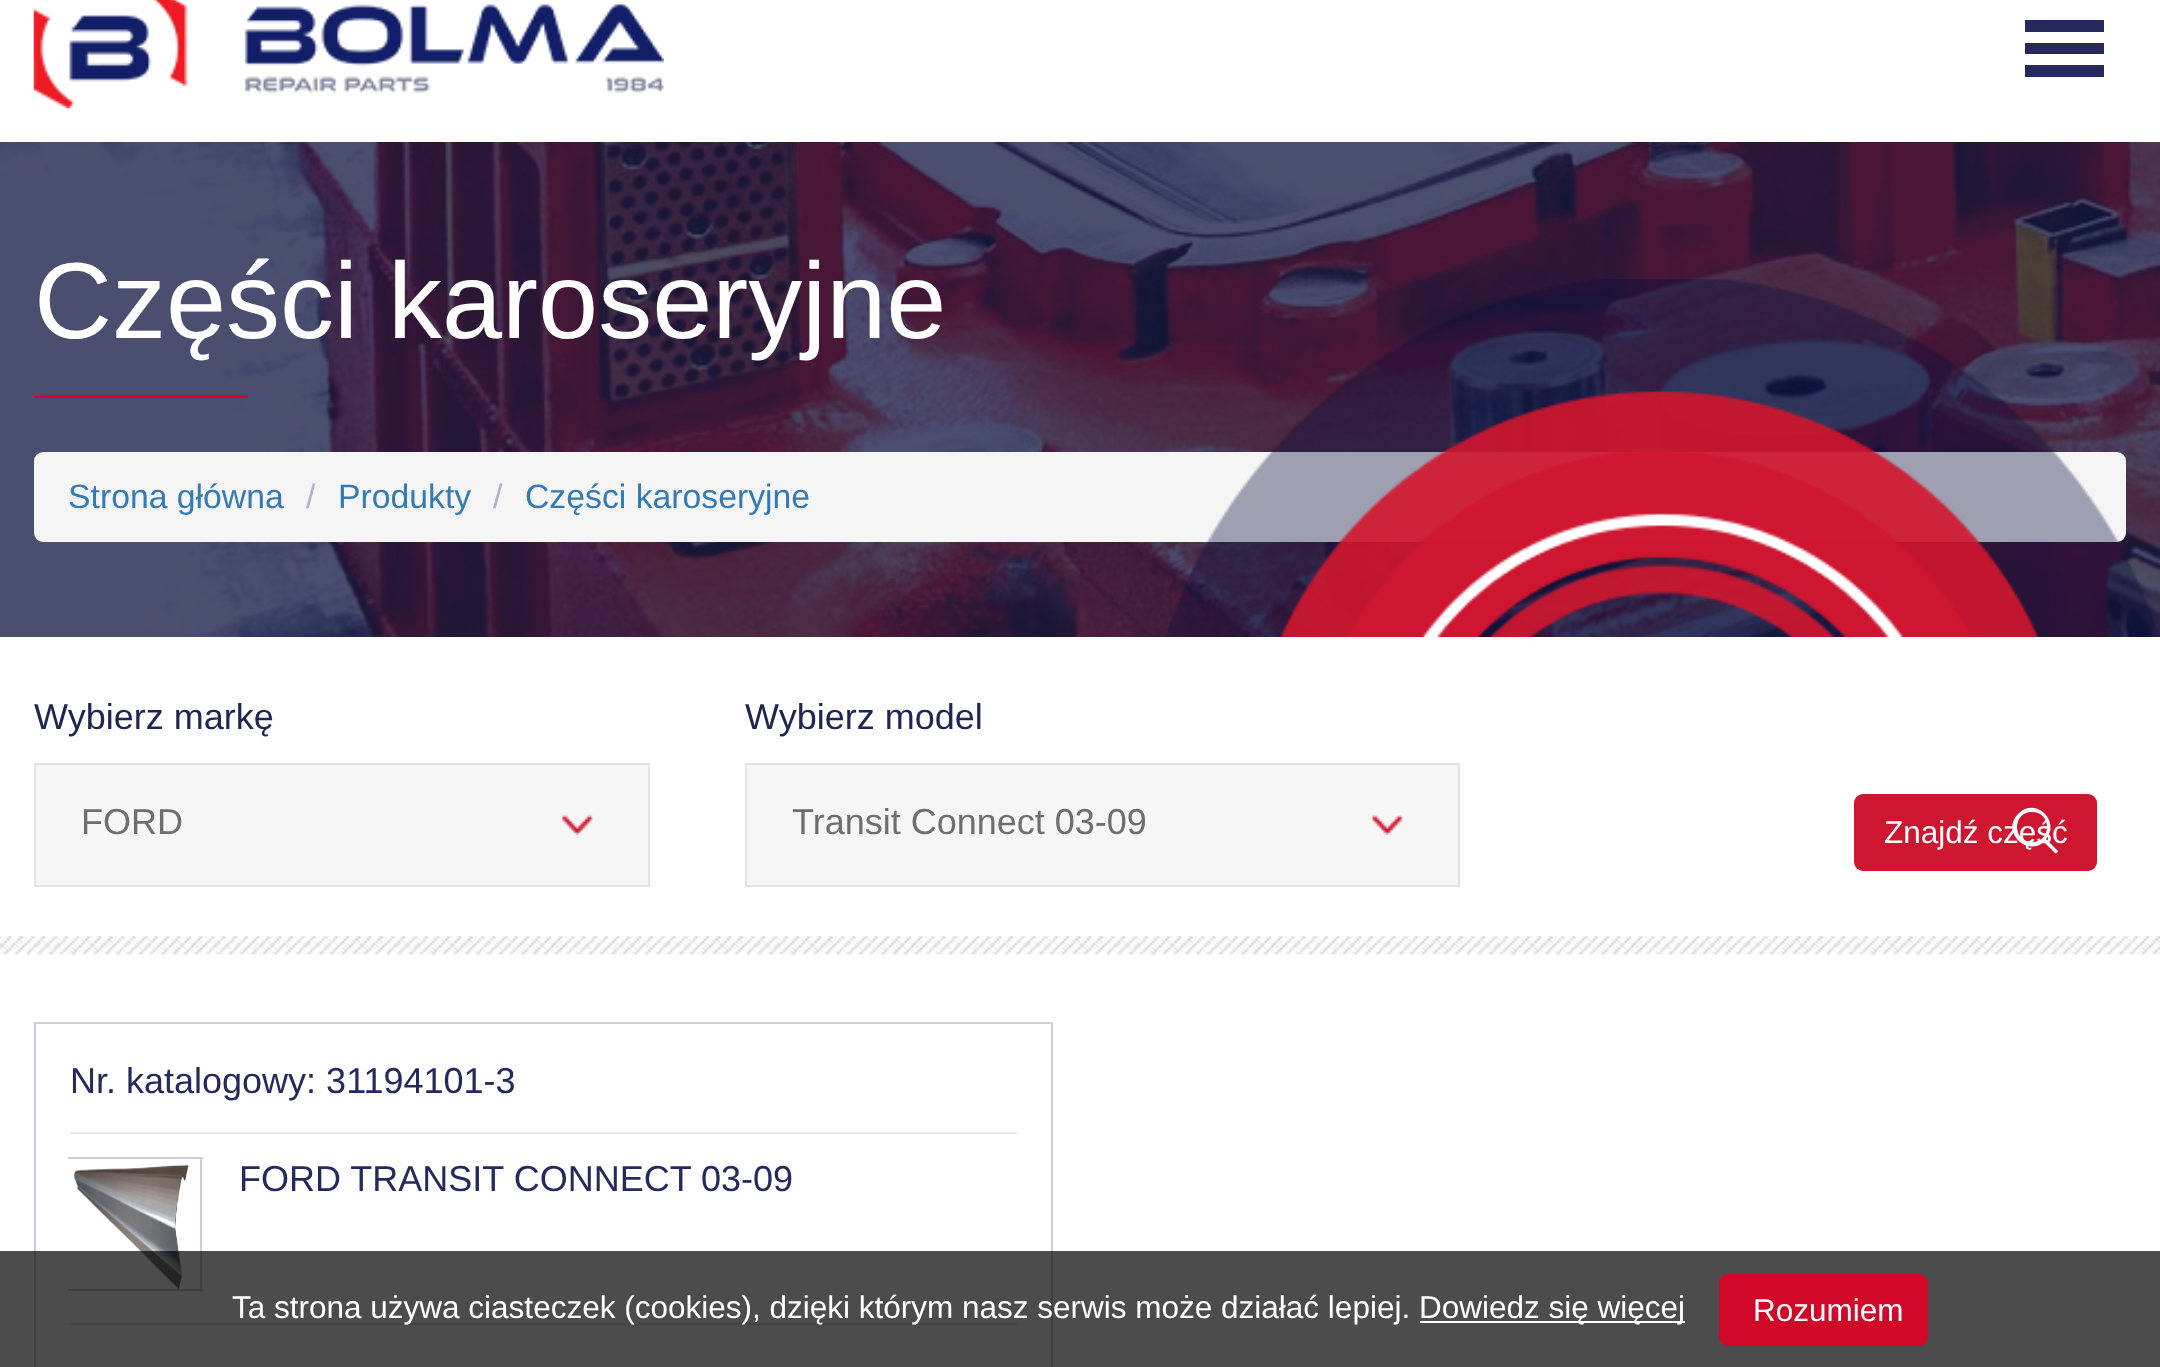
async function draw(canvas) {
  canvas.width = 2160
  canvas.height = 1367
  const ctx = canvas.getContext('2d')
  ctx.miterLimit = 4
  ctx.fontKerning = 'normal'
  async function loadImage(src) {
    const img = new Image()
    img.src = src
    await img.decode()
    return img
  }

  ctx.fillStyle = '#fff'
  ctx.fillRect(0, 0, 2160, 1367)
  ctx.drawImage(await loadImage('image0.png'), 33, 0, 631, 109)
  ctx.fillStyle = '#25295c'
  ctx.fillRect(2025, 20, 79, 12)
  ctx.fillRect(2025, 43, 79, 11)
  ctx.fillRect(2025, 65, 79, 12)
  ctx.drawImage(await loadImage('image1.png'), 0, 142, 2160, 495)
  ctx.font = '108px Liberation Sans'
  ctx.fillStyle = '#fff'
  ctx.fillText('Części karoseryjne', 34, 338)
  ctx.fillStyle = '#d00727'
  ctx.fillRect(34, 396, 214, 2)
  ctx.fillStyle = '#f5f5f5'
  ctx.beginPath()
  ctx.roundRect(34, 452, 2092, 90, 9)
  ctx.fill()
  ctx.font = '33.75px Liberation Sans'
  ctx.fillStyle = '#337ab7'
  ctx.fillText('Strona główna', 68, 508)
  ctx.fillStyle = '#b1b1c9'
  ctx.fillText('/', 306, 508)
  ctx.fillStyle = '#337ab7'
  ctx.fillText('Produkty', 338, 508)
  ctx.fillStyle = '#b1b1c9'
  ctx.fillText('/', 493, 508)
  ctx.fillStyle = '#337ab7'
  ctx.fillText('Części karoseryjne', 525, 508)
  ctx.drawImage(await loadImage('image2.png'), 1165, 279, 995, 358)
  ctx.font = '36px Liberation Sans'
  ctx.fillStyle = '#202652'
  ctx.fillText('Wybierz markę', 34, 729)
  ctx.fillStyle = '#f6f6f6'
  ctx.fillRect(36, 765, 612, 120)
  ctx.drawImage(await loadImage('image3.png'), 562, 814, 31, 21)
  ctx.strokeStyle = '#e3e3e3'
  ctx.lineWidth = 2
  ctx.strokeRect(35, 764, 614, 122)
  ctx.fillStyle = '#6e6e6e'
  ctx.fillText('FORD', 81, 834)
  ctx.fillStyle = '#202652'
  ctx.fillText('Wybierz model', 745, 729)
  ctx.fillStyle = '#f6f6f6'
  ctx.fillRect(747, 765, 711, 120)
  ctx.drawImage(await loadImage('image3.png'), 1372, 814, 31, 21)
  ctx.strokeRect(746, 764, 713, 122)
  ctx.fillStyle = '#6e6e6e'
  ctx.fillText('Transit Connect 03-09', 792, 834)
  ctx.fillStyle = '#ce1630'
  ctx.beginPath()
  ctx.roundRect(1854, 794, 243, 77, 9)
  ctx.fill()
  ctx.fillStyle = '#fff'
  ctx.beginPath()
  ctx.moveTo(2057, 850)
  ctx.lineTo(2046, 839)
  ctx.bezierCurveTo(2061, 821, 2035, 796, 2018, 814)
  ctx.bezierCurveTo(2001, 831, 2026, 857, 2044, 842)
  ctx.lineTo(2055, 853)
  ctx.bezierCurveTo(2057, 854, 2059, 851, 2057, 850)
  ctx.closePath()
  ctx.moveTo(2032, 842)
  ctx.bezierCurveTo(2012, 842, 2012, 812, 2032, 812)
  ctx.bezierCurveTo(2052, 812, 2052, 842, 2032, 842)
  ctx.closePath()
  ctx.fill()
  ctx.font = '31.5px Liberation Sans'
  ctx.fillText('Znajdź część', 1884, 843)
  ctx.drawImage(await loadImage('image4.png'), 0, 936, 2160, 19)
  ctx.strokeStyle = '#cccedc'
  ctx.strokeRect(35, 1023, 1017, 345)
  ctx.font = '36px Liberation Sans'
  ctx.fillStyle = '#25295c'
  ctx.fillText('Nr. katalogowy: 31194101-3', 70, 1093)
  ctx.fillStyle = '#e8e8ed'
  ctx.fillRect(70, 1132, 947, 2)
  ctx.fillRect(70, 1323, 947, 2)
  ctx.fillStyle = '#25295c'
  ctx.fillText('FORD TRANSIT CONNECT 03-09', 239, 1191)
  ctx.fillStyle = '#cccedc'
  ctx.fillRect(68, 1157, 135, 2)
  ctx.fillRect(200, 1157, 2, 135)
  ctx.fillRect(68, 1289, 135, 2)
  ctx.drawImage(await loadImage('image5.png'), 74, 1164, 115, 126)
  ctx.fillStyle = '#000000b3'
  ctx.fillRect(0, 1251, 2160, 116)
  ctx.font = '31.5px Liberation Sans'
  ctx.fillStyle = '#fff'
  ctx.fillText('Ta strona używa ciasteczek (cookies), dzięki którym nasz serwis może działać lepiej.', 232, 1318)
  ctx.fillRect(1420, 1321, 265, 2)
  ctx.fillText('Dowiedz się więcej', 1419, 1318)
  ctx.fillStyle = '#d00727'
  ctx.beginPath()
  ctx.roundRect(1719, 1274, 209, 72, 9)
  ctx.fill()
  ctx.fillStyle = '#fff'
  ctx.fillText('Rozumiem', 1753, 1321)
}

draw(document.querySelector('canvas'))
